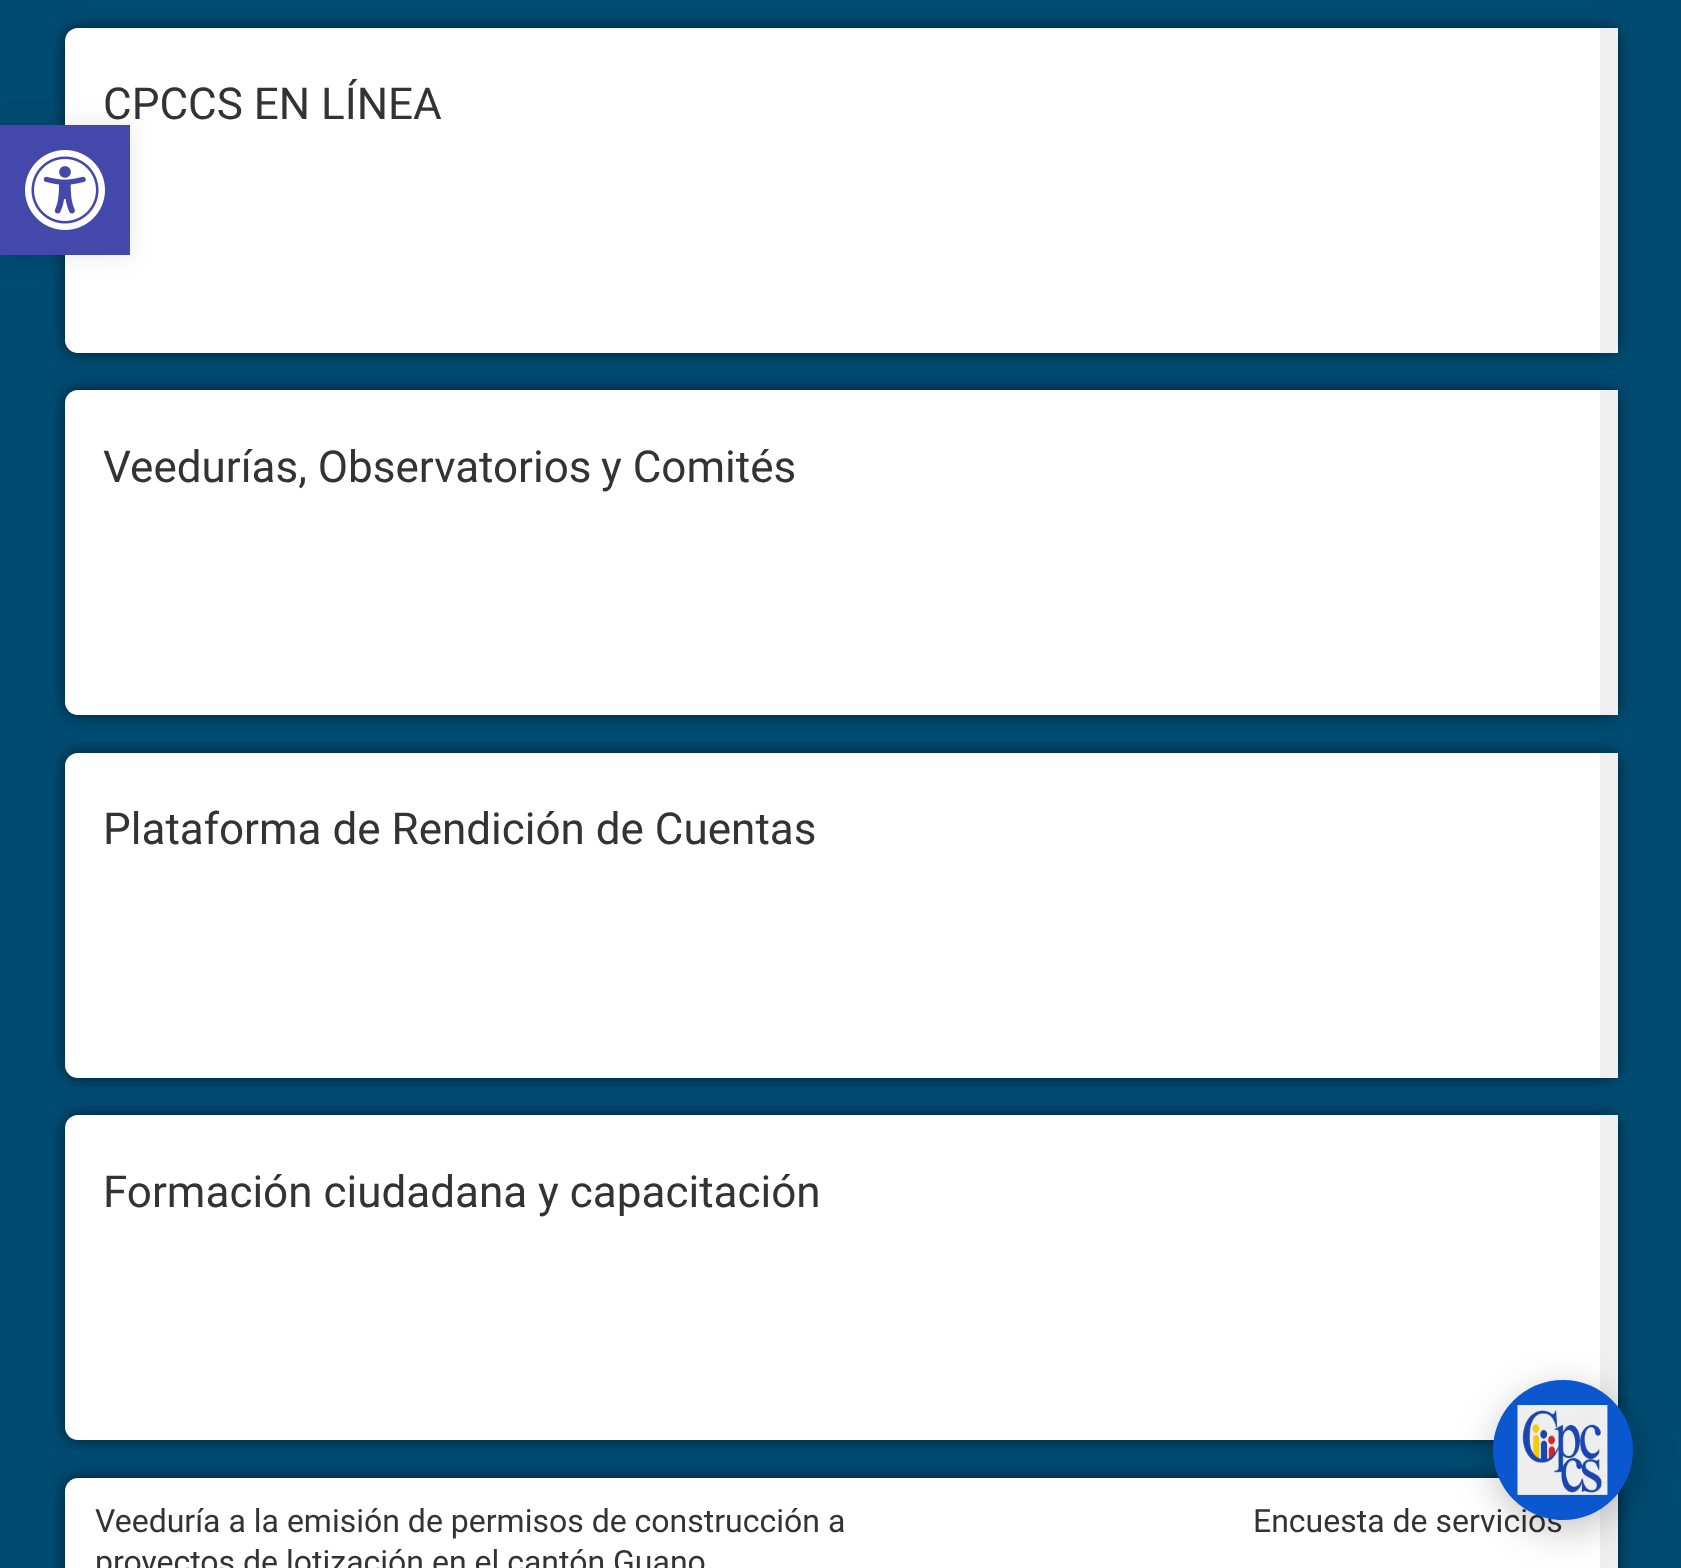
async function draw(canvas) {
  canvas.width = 1681
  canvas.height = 1568
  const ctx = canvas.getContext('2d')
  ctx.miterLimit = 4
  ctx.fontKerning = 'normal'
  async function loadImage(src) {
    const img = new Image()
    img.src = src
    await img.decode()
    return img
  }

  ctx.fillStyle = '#004b72'
  ctx.fillRect(0, 0, 1681, 1568)
  ctx.fillStyle = '#00000099'
  ctx.filter = 'blur(7.5px)'
  ctx.beginPath()
  ctx.roundRect(65, 28, 1553, 325, 13)
  ctx.fill()
  ctx.filter = 'none'
  ctx.fillStyle = '#fff'
  ctx.beginPath()
  ctx.roundRect(65, 28, 1553, 325, [13, 0, 0, 13])
  ctx.fill()
  ctx.fillStyle = '#0000001a'
  ctx.filter = 'blur(12.5px)'
  ctx.beginPath()
  ctx.rect(0, 125, 130, 130)
  ctx.fill()
  ctx.filter = 'none'
  ctx.fillStyle = '#4448ab'
  ctx.fillRect(0, 125, 130, 130)
  ctx.drawImage(await loadImage('image0.png'), 25, 150, 80, 80)
  ctx.fillStyle = '#efefef'
  ctx.fillRect(1600, 28, 18, 325)
  ctx.font = '44px Roboto'
  ctx.fillStyle = '#333'
  ctx.fillText('CPCCS EN LÍNEA', 103, 119)
  ctx.fillStyle = '#00000099'
  ctx.filter = 'blur(7.5px)'
  ctx.beginPath()
  ctx.roundRect(65, 390, 1553, 325, 13)
  ctx.fill()
  ctx.filter = 'none'
  ctx.fillStyle = '#fff'
  ctx.beginPath()
  ctx.roundRect(65, 390, 1553, 325, [13, 0, 0, 13])
  ctx.fill()
  ctx.fillStyle = '#efefef'
  ctx.fillRect(1600, 390, 18, 325)
  ctx.fillStyle = '#333'
  ctx.fillText('Veedurías, Observatorios', 103, 482)
  ctx.fillText('y Comités', 601, 482)
  ctx.fillStyle = '#00000099'
  ctx.filter = 'blur(7.5px)'
  ctx.beginPath()
  ctx.roundRect(65, 753, 1553, 325, 13)
  ctx.fill()
  ctx.filter = 'none'
  ctx.fillStyle = '#fff'
  ctx.beginPath()
  ctx.roundRect(65, 753, 1553, 325, [13, 0, 0, 13])
  ctx.fill()
  ctx.fillStyle = '#efefef'
  ctx.fillRect(1600, 753, 18, 325)
  ctx.fillStyle = '#333'
  ctx.fillText('Plataforma de Rendición de Cuentas', 103, 844)
  ctx.fillStyle = '#00000099'
  ctx.filter = 'blur(7.5px)'
  ctx.beginPath()
  ctx.roundRect(65, 1115, 1553, 325, 13)
  ctx.fill()
  ctx.filter = 'none'
  ctx.fillStyle = '#fff'
  ctx.beginPath()
  ctx.roundRect(65, 1115, 1553, 325, [13, 0, 0, 13])
  ctx.fill()
  ctx.fillStyle = '#efefef'
  ctx.fillRect(1600, 1115, 18, 292)
  ctx.fillStyle = '#333'
  ctx.fillText('Formación ciudadana y capacitación', 103, 1207)
  ctx.fillStyle = '#00000099'
  ctx.filter = 'blur(7.5px)'
  ctx.beginPath()
  ctx.roundRect(65, 1478, 1553, 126, 13)
  ctx.fill()
  ctx.filter = 'none'
  ctx.fillStyle = '#fff'
  ctx.beginPath()
  ctx.moveTo(78, 1478)
  ctx.lineTo(1618, 1478)
  ctx.lineTo(1618, 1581)
  ctx.lineTo(78, 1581)
  ctx.bezierCurveTo(71, 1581, 65, 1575, 65, 1568)
  ctx.lineTo(65, 1491)
  ctx.bezierCurveTo(65, 1484, 71, 1478, 78, 1478)
  ctx.closePath()
  ctx.fill()
  ctx.fillStyle = '#efefef'
  ctx.fillRect(1600, 1493, 18, 75)
  ctx.font = '32px Roboto'
  ctx.fillStyle = '#333'
  ctx.fillText('Veeduría a la emisión de permisos de construcción a', 95, 1532)
  ctx.fillText('proyectos de lotización en el cantón Guano', 95, 1573)
  ctx.fillText('Encuesta de servicios', 1253, 1532)
  ctx.fillStyle = '#0000003d'
  ctx.filter = 'blur(19px)'
  ctx.beginPath()
  ctx.roundRect(1495, 1390, 140, 140, 70)
  ctx.fill()
  ctx.filter = 'none'
  ctx.fillStyle = '#0b57d0'
  ctx.beginPath()
  ctx.arc(1563, 1450, 70, 0, 2 * Math.PI)
  ctx.fill()
  ctx.drawImage(await loadImage('image1.png'), 1517, 1405, 91, 90)
}

draw(document.querySelector('canvas'))
